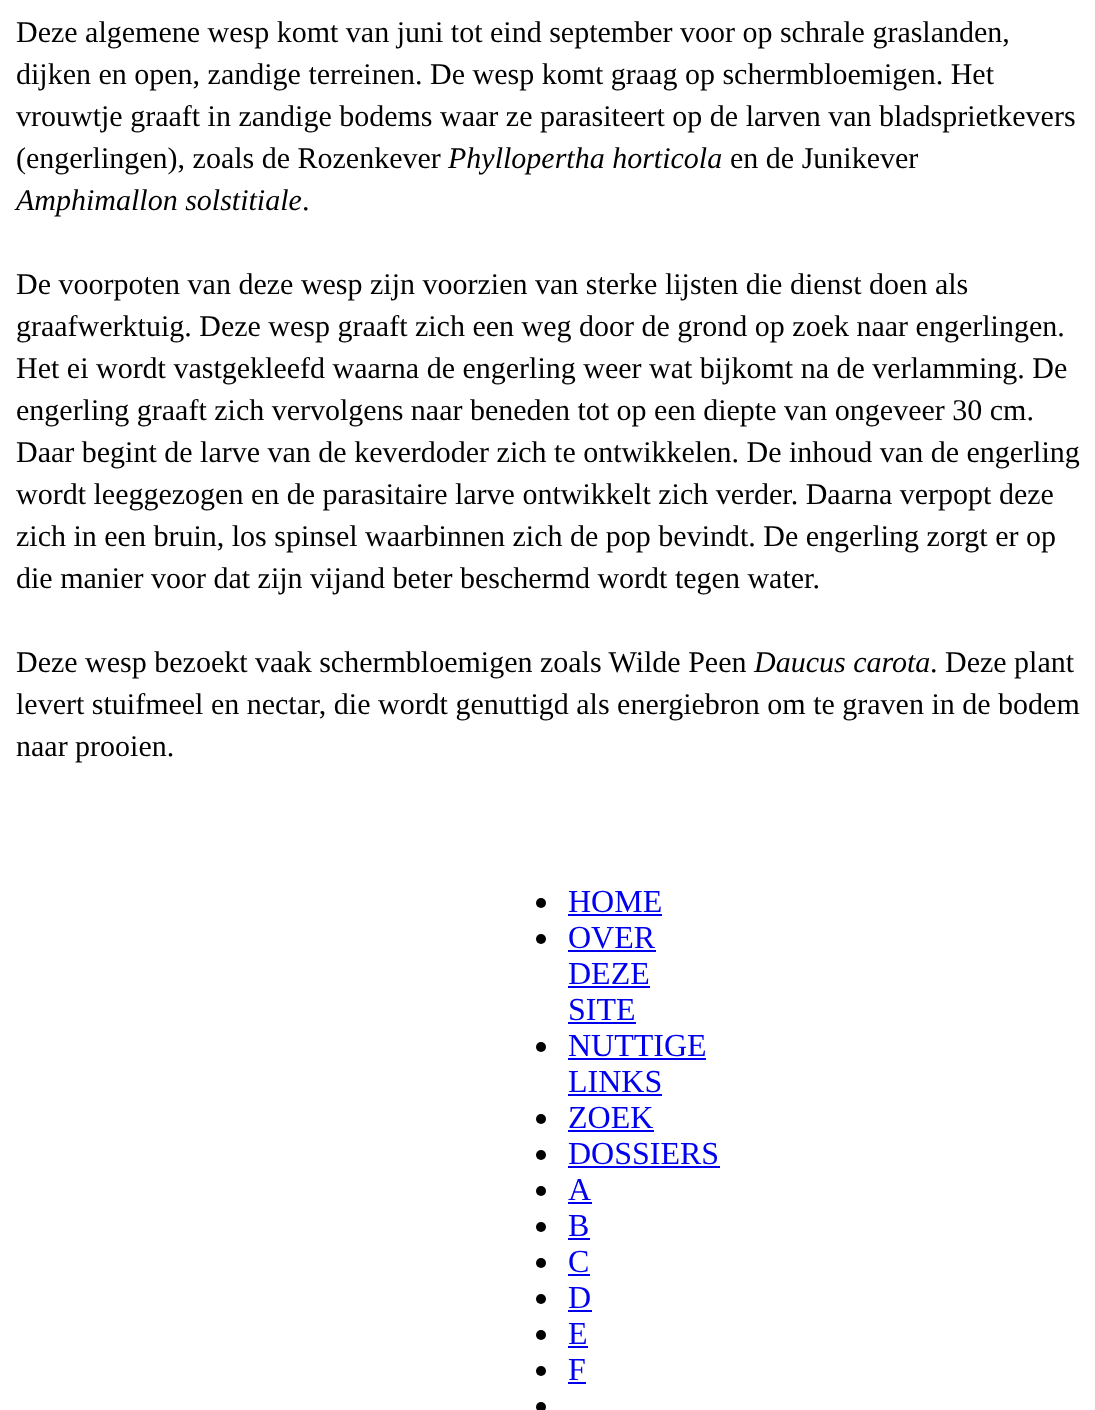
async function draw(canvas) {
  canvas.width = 1095
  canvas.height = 1410
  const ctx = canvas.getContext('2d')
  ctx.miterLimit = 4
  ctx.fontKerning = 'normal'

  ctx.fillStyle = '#fff'
  ctx.fillRect(0, 0, 1095, 1410)
  ctx.font = '30px Liberation Serif'
  ctx.fillStyle = '#000'
  ctx.fillText('Deze algemene wesp komt van juni tot eind september voor op schrale graslanden,', 16, 42)
  ctx.fillText('dijken en open, zandige terreinen. De wesp komt graag op schermbloemigen. Het', 16, 84)
  ctx.fillText('vrouwtje graaft in zandige bodems waar ze parasiteert op de larven van bladsprietkevers', 16, 126)
  ctx.fillText('(engerlingen), zoals de Rozenkever', 16, 168)
  ctx.font = 'italic 30px Liberation Serif'
  ctx.fillText('Phyllopertha horticola', 448, 168)
  ctx.font = '30px Liberation Serif'
  ctx.fillText('en de Junikever', 730, 168)
  ctx.font = 'italic 30px Liberation Serif'
  ctx.fillText('Amphimallon solstitiale', 16, 210)
  ctx.font = '30px Liberation Serif'
  ctx.fillText('.', 302, 210)
  ctx.fillText('De voorpoten van deze wesp zijn voorzien van sterke lijsten die dienst doen als', 16, 294)
  ctx.fillText('graafwerktuig. Deze wesp graaft zich een weg door de grond op zoek naar engerlingen.', 16, 336)
  ctx.fillText('Het ei wordt vastgekleefd waarna de engerling weer wat bijkomt na de verlamming. De', 16, 378)
  ctx.fillText('engerling graaft zich vervolgens naar beneden tot op een diepte van ongeveer 30 cm.', 16, 420)
  ctx.fillText('Daar begint de larve van de keverdoder zich te ontwikkelen. De inhoud van de engerling', 16, 462)
  ctx.fillText('wordt leeggezogen en de parasitaire larve ontwikkelt zich verder. Daarna verpopt deze', 16, 504)
  ctx.fillText('zich in een bruin, los spinsel waarbinnen zich de pop bevindt. De engerling zorgt er op', 16, 546)
  ctx.fillText('die manier voor dat zijn vijand beter beschermd wordt tegen water.', 16, 588)
  ctx.fillText('Deze wesp bezoekt vaak schermbloemigen zoals Wilde Peen', 16, 672)
  ctx.font = 'italic 30px Liberation Serif'
  ctx.fillText('Daucus carota', 754, 672)
  ctx.font = '30px Liberation Serif'
  ctx.fillText('. Deze plant', 930, 672)
  ctx.fillText('levert stuifmeel en nectar, die wordt genuttigd als energiebron om te graven in de bodem', 16, 714)
  ctx.fillText('naar prooien.', 16, 756)
  ctx.beginPath()
  ctx.arc(541, 903, 5, 0, 2 * Math.PI)
  ctx.fill()
  ctx.font = '32px Liberation Serif'
  ctx.fillStyle = '#00e'
  ctx.fillText('HOME', 568, 912)
  ctx.fillRect(568, 914, 94, 2)
  ctx.fillStyle = '#000'
  ctx.beginPath()
  ctx.arc(541, 939, 5, 0, 2 * Math.PI)
  ctx.fill()
  ctx.fillStyle = '#00e'
  ctx.fillText('OVER', 568, 948)
  ctx.fillRect(568, 950, 88, 2)
  ctx.fillText('DEZE', 568, 984)
  ctx.fillRect(568, 986, 82, 2)
  ctx.fillText('SITE', 568, 1020)
  ctx.fillRect(568, 1022, 68, 2)
  ctx.fillStyle = '#000'
  ctx.beginPath()
  ctx.arc(541, 1047, 5, 0, 2 * Math.PI)
  ctx.fill()
  ctx.fillStyle = '#00e'
  ctx.fillText('NUTTIGE', 568, 1056)
  ctx.fillRect(568, 1058, 138, 2)
  ctx.fillText('LINKS', 568, 1092)
  ctx.fillRect(568, 1094, 94, 2)
  ctx.fillStyle = '#000'
  ctx.beginPath()
  ctx.arc(541, 1119, 5, 0, 2 * Math.PI)
  ctx.fill()
  ctx.fillStyle = '#00e'
  ctx.fillText('ZOEK', 568, 1128)
  ctx.fillRect(568, 1130, 86, 2)
  ctx.fillStyle = '#000'
  ctx.beginPath()
  ctx.arc(541, 1155, 5, 0, 2 * Math.PI)
  ctx.fill()
  ctx.fillStyle = '#00e'
  ctx.fillText('DOSSIERS', 568, 1164)
  ctx.fillRect(568, 1166, 152, 2)
  ctx.fillStyle = '#000'
  ctx.beginPath()
  ctx.arc(541, 1191, 5, 0, 2 * Math.PI)
  ctx.fill()
  ctx.fillStyle = '#00e'
  ctx.fillText('A', 568, 1200)
  ctx.fillRect(568, 1202, 24, 2)
  ctx.fillStyle = '#000'
  ctx.beginPath()
  ctx.arc(541, 1227, 5, 0, 2 * Math.PI)
  ctx.fill()
  ctx.fillStyle = '#00e'
  ctx.fillText('B', 568, 1236)
  ctx.fillRect(568, 1238, 22, 2)
  ctx.fillStyle = '#000'
  ctx.beginPath()
  ctx.arc(541, 1263, 5, 0, 2 * Math.PI)
  ctx.fill()
  ctx.fillStyle = '#00e'
  ctx.fillText('C', 568, 1272)
  ctx.fillRect(568, 1274, 22, 2)
  ctx.fillStyle = '#000'
  ctx.beginPath()
  ctx.arc(541, 1299, 5, 0, 2 * Math.PI)
  ctx.fill()
  ctx.fillStyle = '#00e'
  ctx.fillText('D', 568, 1308)
  ctx.fillRect(568, 1310, 24, 2)
  ctx.fillStyle = '#000'
  ctx.beginPath()
  ctx.arc(541, 1335, 5, 0, 2 * Math.PI)
  ctx.fill()
  ctx.fillStyle = '#00e'
  ctx.fillText('E', 568, 1344)
  ctx.fillRect(568, 1346, 20, 2)
  ctx.fillStyle = '#000'
  ctx.beginPath()
  ctx.arc(541, 1371, 5, 0, 2 * Math.PI)
  ctx.fill()
  ctx.fillStyle = '#00e'
  ctx.fillText('F', 568, 1380)
  ctx.fillRect(568, 1382, 18, 2)
  ctx.fillStyle = '#000'
  ctx.beginPath()
  ctx.arc(541, 1407, 5, 0, 2 * Math.PI)
  ctx.fill()
}

draw(document.querySelector('canvas'))
